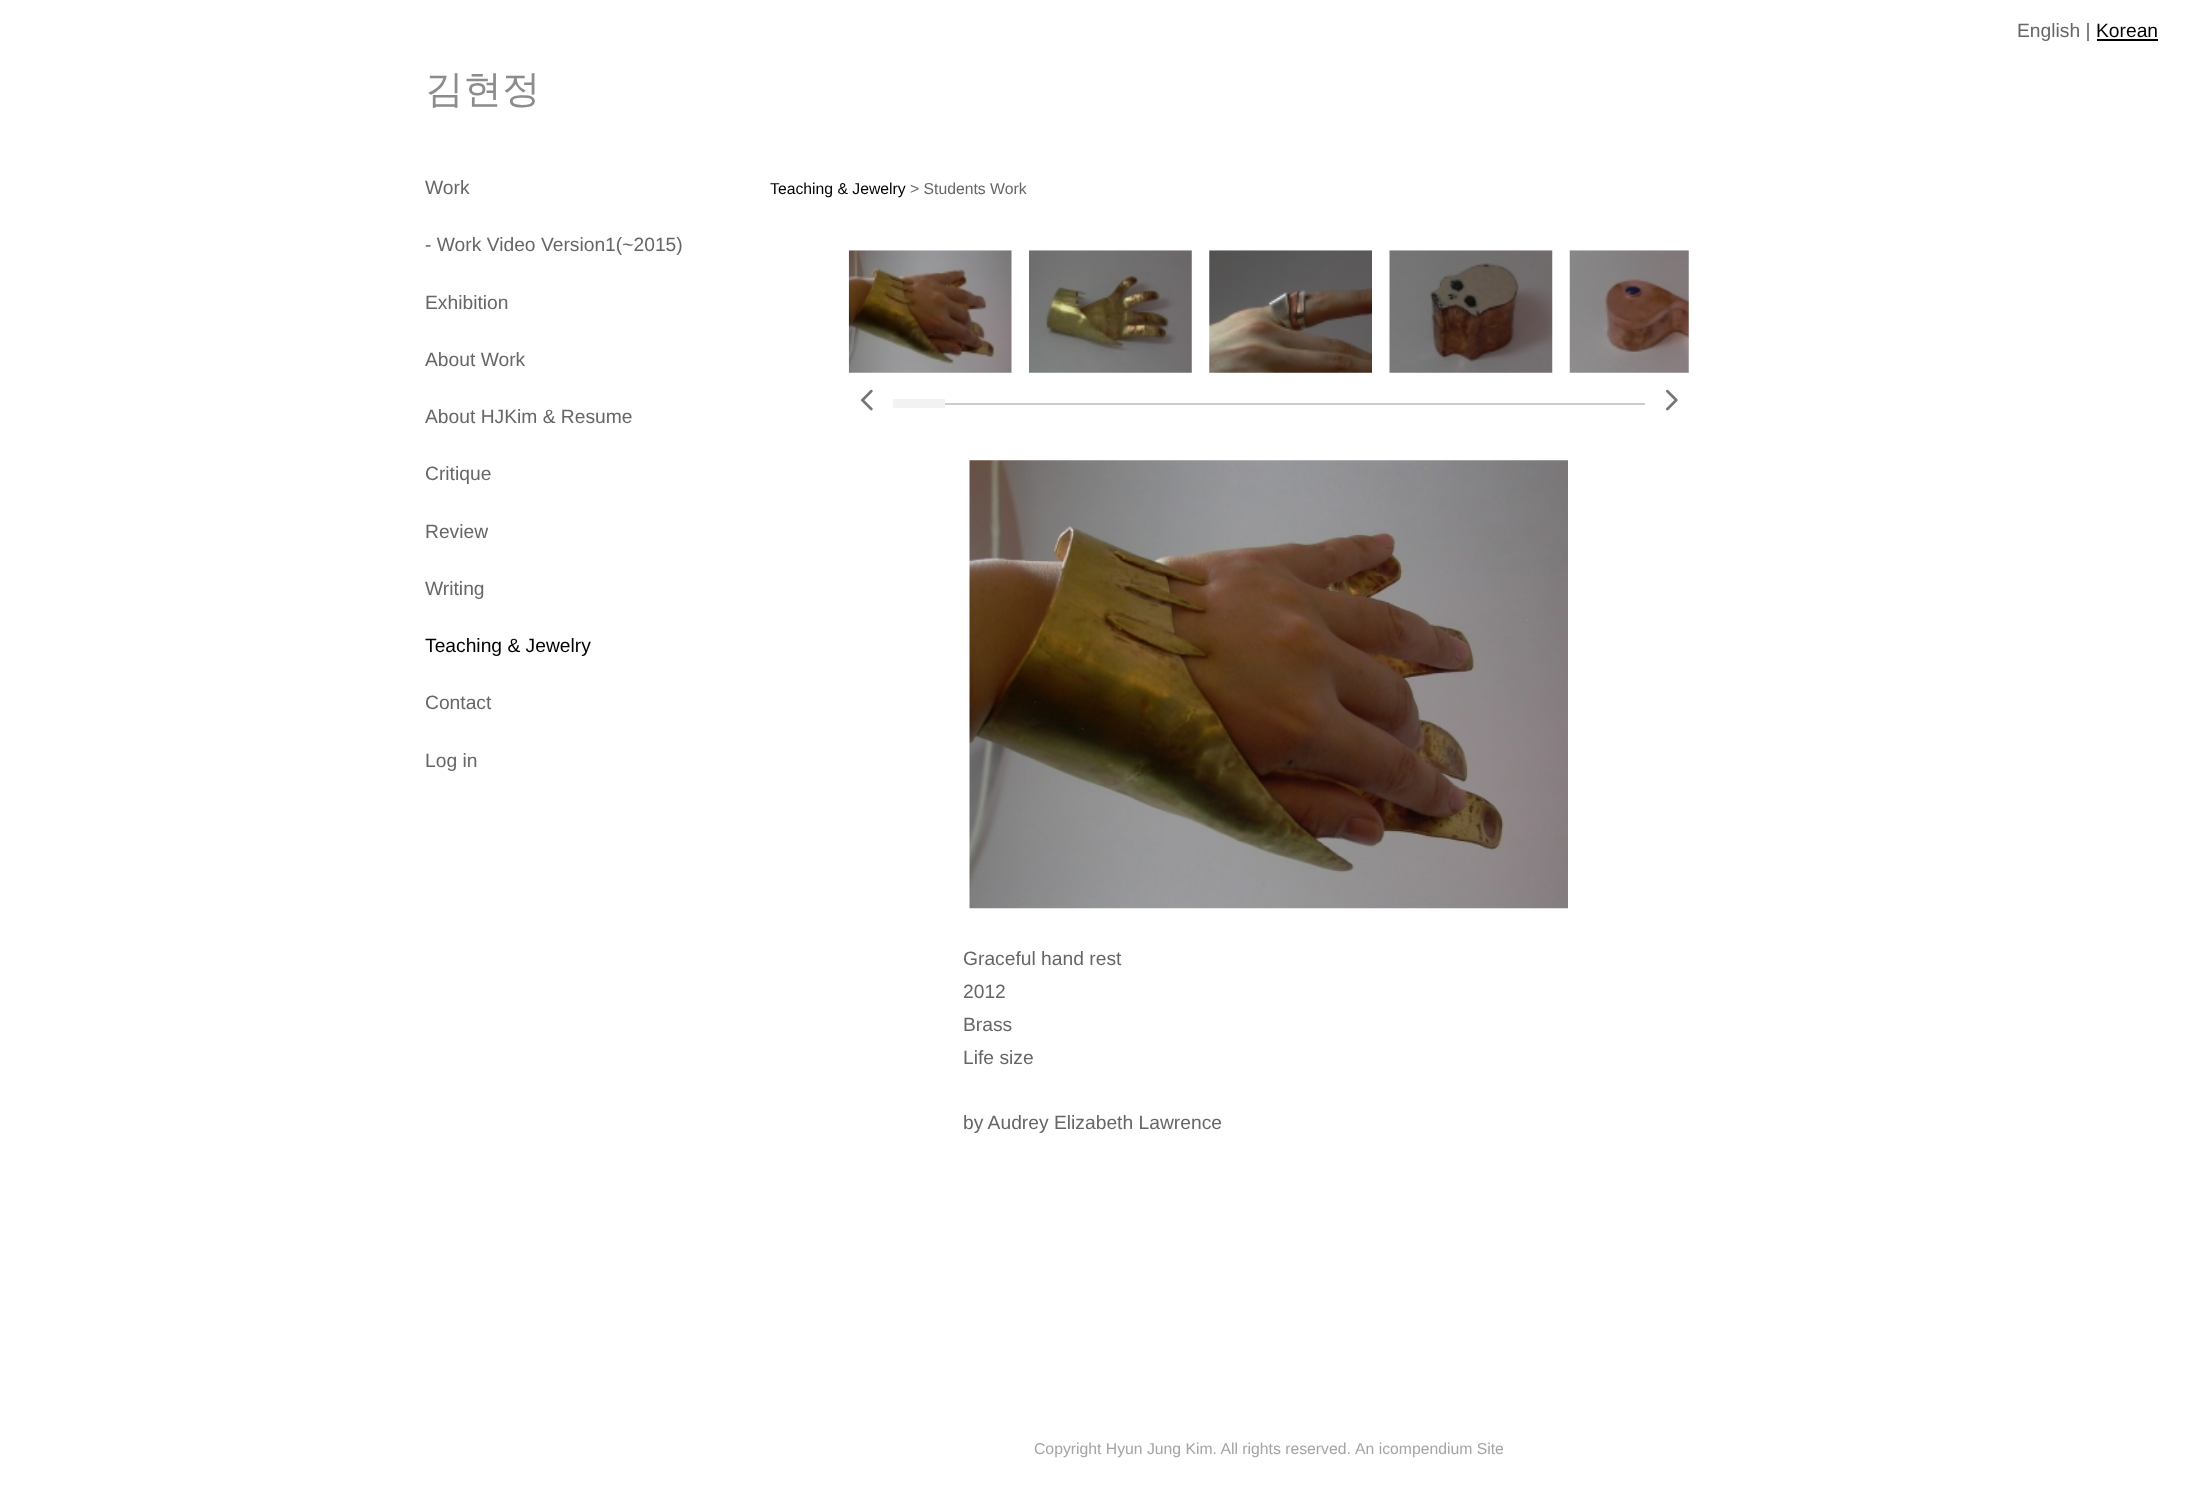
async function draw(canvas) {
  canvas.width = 2192
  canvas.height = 1488
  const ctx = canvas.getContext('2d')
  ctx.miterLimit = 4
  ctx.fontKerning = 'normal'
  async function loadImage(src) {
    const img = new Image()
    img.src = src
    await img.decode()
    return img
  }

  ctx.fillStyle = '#fff'
  ctx.fillRect(0, 0, 2192, 1488)
  ctx.font = '19.25px Liberation Sans'
  ctx.fillStyle = '#666'
  ctx.fillText('English |', 2017, 37)
  ctx.fillStyle = '#000'
  ctx.fillText('Korean', 2096, 37)
  ctx.fillRect(2097, 39, 61, 2)
  ctx.font = '500 38.5px WenQuanYi Zen Hei'
  ctx.fillStyle = '#8c8c8c'
  ctx.fillText('김현정', 425, 102)
  ctx.font = '19.25px Liberation Sans'
  ctx.fillStyle = '#666'
  ctx.fillText('Work', 425, 194)
  ctx.fillText('- Work Video Version1(~2015)', 425, 251)
  ctx.fillText('Exhibition', 425, 309)
  ctx.fillText('About Work', 425, 366)
  ctx.fillText('About HJKim & Resume', 425, 423)
  ctx.fillText('Critique', 425, 480)
  ctx.fillText('Review', 425, 538)
  ctx.fillText('Writing', 425, 595)
  ctx.fillStyle = '#000'
  ctx.fillText('Teaching & Jewelry', 425, 652)
  ctx.fillStyle = '#666'
  ctx.fillText('Contact', 425, 709)
  ctx.fillText('Log in', 425, 767)
  ctx.font = '15.75px Liberation Sans'
  ctx.fillStyle = '#000'
  ctx.fillText('Teaching & Jewelry', 770, 194)
  ctx.fillStyle = '#666'
  ctx.fillText('> Students Work', 910, 194)
  ctx.drawImage(await loadImage('image0.png'), 848, 250, 164, 123)
  ctx.drawImage(await loadImage('image1.png'), 1029, 250, 163, 123)
  ctx.drawImage(await loadImage('image2.png'), 1209, 250, 163, 123)
  ctx.drawImage(await loadImage('image3.png'), 1389, 250, 164, 123)
  ctx.drawImage(await loadImage('image4.png'), 1569, 250, 120, 123)
  ctx.drawImage(await loadImage('image5.png'), 861, 389, 12, 22)
  ctx.fillStyle = '#f2f2f2'
  ctx.fillRect(893, 399, 52, 9)
  ctx.fillStyle = '#ccc'
  ctx.fillRect(945, 403, 700, 2)
  ctx.drawImage(await loadImage('image6.png'), 1666, 389, 12, 22)
  ctx.drawImage(await loadImage('image7.png'), 969, 460, 599, 449)
  ctx.font = '19.25px Liberation Sans'
  ctx.fillStyle = '#666'
  ctx.fillText('Graceful hand rest', 963, 965)
  ctx.fillText('2012', 963, 998)
  ctx.fillText('Brass', 963, 1031)
  ctx.fillText('Life size', 963, 1064)
  ctx.fillText('by Audrey Elizabeth Lawrence', 963, 1129)
  ctx.font = '15.75px Liberation Sans'
  ctx.fillStyle = '#a4a4a4'
  ctx.fillText('Copyright Hyun Jung Kim. All rights reserved.', 1034, 1454)
  ctx.fillText('An icompendium Site', 1355, 1454)
}

draw(document.querySelector('canvas'))
